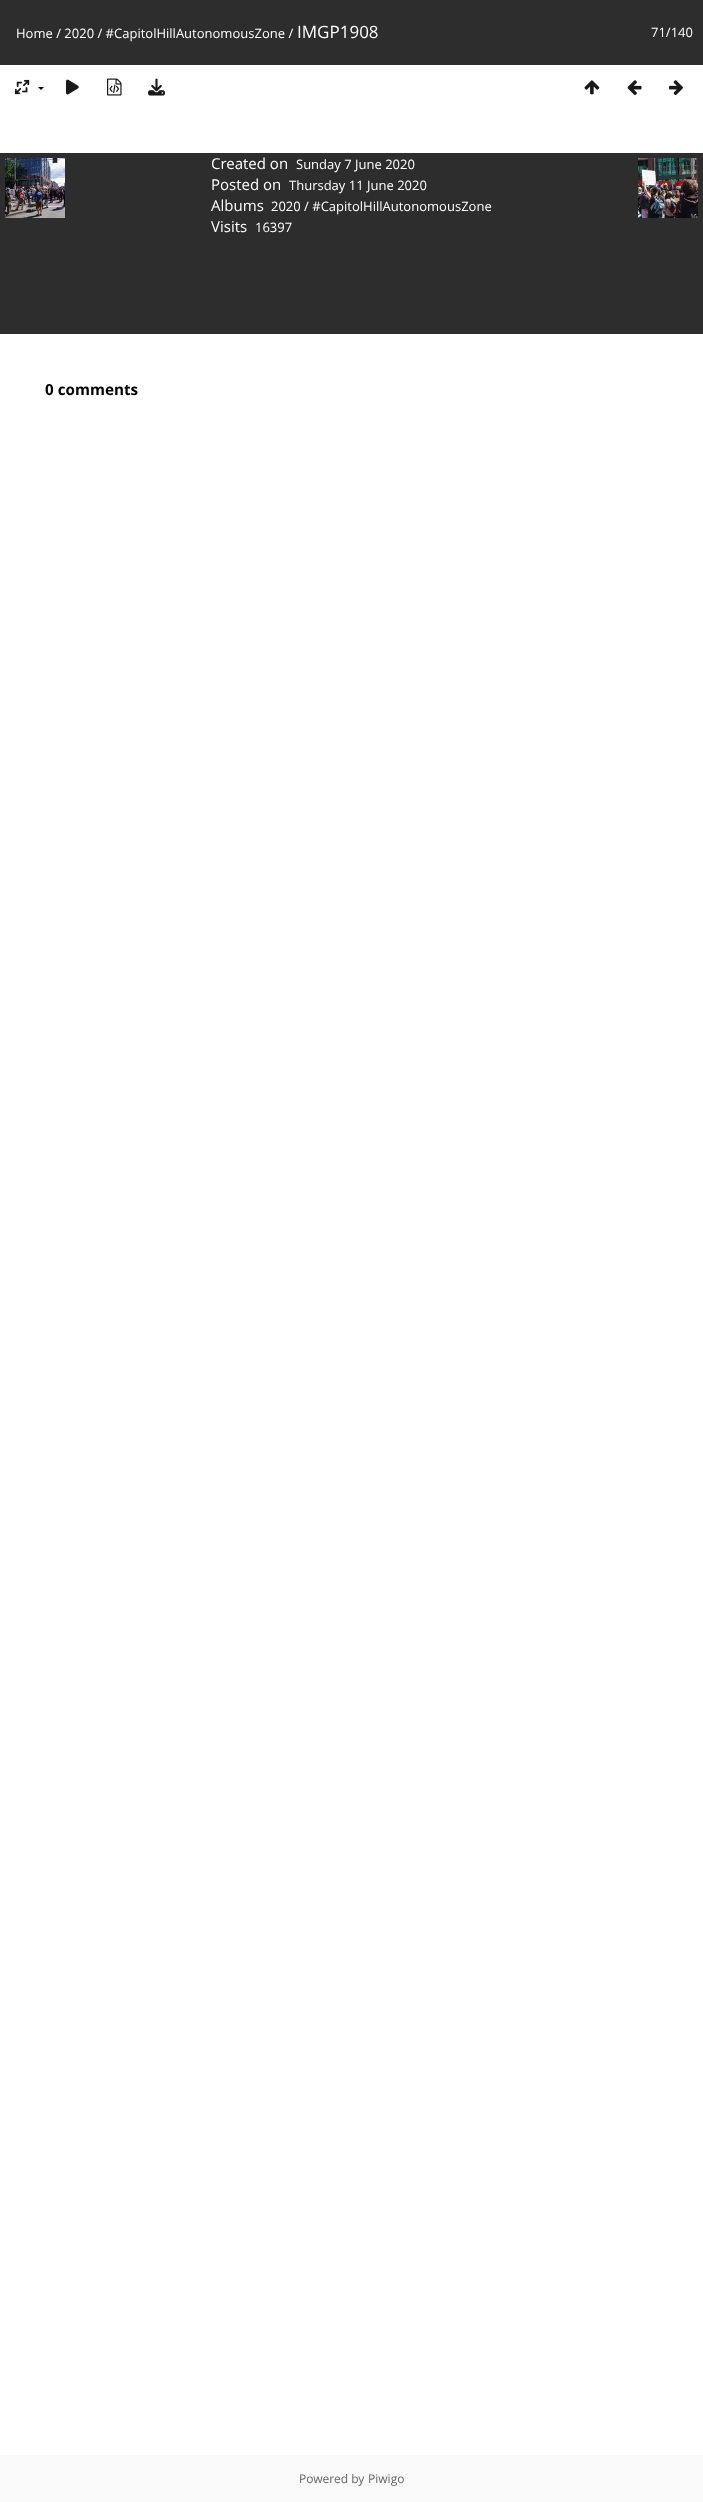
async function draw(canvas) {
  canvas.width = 703
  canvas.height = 2502
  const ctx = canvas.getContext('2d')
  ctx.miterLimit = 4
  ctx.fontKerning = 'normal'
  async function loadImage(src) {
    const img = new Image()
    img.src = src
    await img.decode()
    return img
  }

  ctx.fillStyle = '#fff'
  ctx.fillRect(0, 0, 703, 2502)
  ctx.fillStyle = '#2d2d2d'
  ctx.fillRect(0, 0, 703, 65)
  ctx.font = '13px Open Sans'
  ctx.fillStyle = '#fff'
  ctx.fillText('Home / 2020 / #CapitolHillAutonomousZone /', 16, 38)
  ctx.font = '17px Open Sans'
  ctx.fillText('IMGP1908', 297, 38)
  ctx.font = '13px Open Sans'
  ctx.fillText('71/140', 651, 37)
  ctx.drawImage(await loadImage('image0.png'), 15, 79, 15, 16)
  ctx.fillStyle = '#000'
  ctx.beginPath()
  ctx.moveTo(38, 87)
  ctx.lineTo(44, 87)
  ctx.lineTo(41, 90)
  ctx.closePath()
  ctx.fill()
  ctx.drawImage(await loadImage('image1.png'), 66, 79, 13, 16)
  ctx.drawImage(await loadImage('image2.png'), 107, 78, 15, 18)
  ctx.drawImage(await loadImage('image3.png'), 148, 78, 17, 18)
  ctx.drawImage(await loadImage('image4.png'), 584, 80, 16, 15)
  ctx.drawImage(await loadImage('image5.png'), 627, 80, 15, 15)
  ctx.drawImage(await loadImage('image6.png'), 669, 80, 14, 15)
  ctx.fillStyle = '#2d2d2d'
  ctx.fillRect(0, 153, 703, 181)
  ctx.font = '15px Open Sans'
  ctx.fillStyle = '#fff'
  ctx.fillText('Created on', 211, 169)
  ctx.font = '13px Open Sans'
  ctx.fillText('Sunday 7 June 2020', 296, 169)
  ctx.font = '15px Open Sans'
  ctx.fillText('Posted on', 211, 190)
  ctx.font = '13px Open Sans'
  ctx.fillText('Thursday 11 June 2020', 289, 190)
  ctx.font = '15px Open Sans'
  ctx.fillText('Albums', 211, 211)
  ctx.font = '13px Open Sans'
  ctx.fillText('2020 / #CapitolHillAutonomousZone', 271, 211)
  ctx.font = '15px Open Sans'
  ctx.fillText('Visits', 211, 232)
  ctx.font = '13px Open Sans'
  ctx.fillText('16397', 255, 232)
  ctx.drawImage(await loadImage('image7.png'), 5, 158, 60, 60)
  ctx.drawImage(await loadImage('image8.png'), 638, 158, 60, 60)
  ctx.font = 'bold 15.25px Open Sans'
  ctx.fillStyle = '#000'
  ctx.fillText('0 comments', 45, 395)
  ctx.fillStyle = '#f9f9f9'
  ctx.fillRect(0, 2455, 703, 47)
  ctx.font = '12px Open Sans'
  ctx.fillStyle = '#666'
  ctx.fillText('Powered by', 299, 2483)
  ctx.fillText('Piwigo', 368, 2483)
}

draw(document.querySelector('canvas'))
